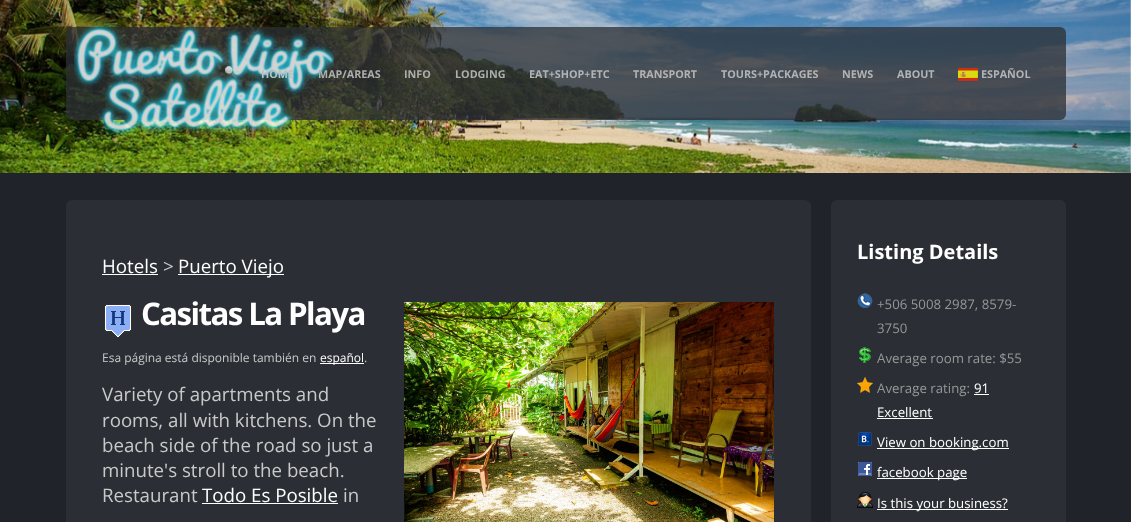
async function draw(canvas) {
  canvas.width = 1131
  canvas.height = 522
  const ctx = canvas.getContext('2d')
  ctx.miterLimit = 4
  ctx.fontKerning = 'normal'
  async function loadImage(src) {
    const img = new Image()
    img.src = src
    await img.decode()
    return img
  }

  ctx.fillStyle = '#fff'
  ctx.fillRect(0, 0, 1131, 522)
  ctx.drawImage(await loadImage('image0.png'), 0, 0, 1131, 173)
  ctx.fillStyle = '#2c2f34c2'
  ctx.beginPath()
  ctx.roundRect(66, 27, 1000, 93, 6)
  ctx.fill()
  ctx.drawImage(await loadImage('image1.png'), 74, 23, 260, 113)
  ctx.drawImage(await loadImage('image2.png'), 225, 66, 12, 12)
  ctx.font = 'bold 10.75px Open Sans'
  ctx.fillStyle = '#bac3c4'
  ctx.fillText('HOME', 261, 78)
  ctx.fillStyle = '#adaeae'
  ctx.fillText('MAP/AREAS', 318, 78)
  ctx.fillText('INFO', 404, 78)
  ctx.fillText('LODGING', 455, 78)
  ctx.fillStyle = '#b2b3b4'
  ctx.fillText('EAT+SHOP+ETC', 529, 78)
  ctx.fillText('TRANSPORT', 633, 78)
  ctx.fillText('TOURS+PACKAGES', 721, 78)
  ctx.fillText('NEWS', 842, 78)
  ctx.fillText('ABOUT', 897, 78)
  ctx.drawImage(await loadImage('image3.png'), 958, 68, 20, 13)
  ctx.fillText('ESPAÑOL', 981, 78)
  ctx.fillStyle = '#20242a'
  ctx.fillRect(0, 173, 1131, 349)
  ctx.fillStyle = '#2b2e34'
  ctx.beginPath()
  ctx.roundRect(66, 200, 745, 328, 6)
  ctx.fill()
  ctx.font = '18.7px Open Sans'
  ctx.fillStyle = '#fff'
  ctx.fillText('Hotels', 102, 273)
  ctx.fillRect(102, 274, 56, 1)
  ctx.fillStyle = '#c9c9c9'
  ctx.fillText('>', 163, 273)
  ctx.fillStyle = '#fff'
  ctx.fillRect(178, 274, 106, 1)
  ctx.fillText('Puerto Viejo', 178, 273)
  ctx.drawImage(await loadImage('image4.png'), 104, 304, 28, 33)
  ctx.letterSpacing = '-1.6px'
  ctx.font = 'bold 31.25px Open Sans'
  ctx.fillText('Casitas La Playa', 141, 325)
  ctx.drawImage(await loadImage('image5.png'), 404, 302, 370, 220)
  ctx.letterSpacing = '0px'
  ctx.font = '12px Open Sans'
  ctx.fillStyle = '#c9c9c9'
  ctx.fillText('Esa página está disponible también en', 102, 362)
  ctx.fillStyle = '#fff'
  ctx.fillRect(320, 363, 44, 1)
  ctx.fillText('español', 320, 362)
  ctx.fillStyle = '#c9c9c9'
  ctx.fillText('.', 364, 362)
  ctx.font = '18.7px Open Sans'
  ctx.fillText('Variety of apartments and', 102, 401)
  ctx.fillText('rooms, all with kitchens. On the', 102, 427)
  ctx.fillText('beach side of the road so just a', 102, 452)
  ctx.fillText('minute\'s stroll to the beach.', 102, 477)
  ctx.fillText('Restaurant', 102, 502)
  ctx.fillStyle = '#fff'
  ctx.fillText('Todo Es Posible', 202, 502)
  ctx.fillRect(202, 503, 136, 1)
  ctx.fillStyle = '#c9c9c9'
  ctx.fillText('in', 343, 502)
  ctx.fillStyle = '#2b2e34'
  ctx.beginPath()
  ctx.roundRect(831, 200, 235, 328, 6)
  ctx.fill()
  ctx.font = 'bold 20px Open Sans'
  ctx.fillStyle = '#fff'
  ctx.fillText('Listing Details', 857, 259)
  ctx.drawImage(await loadImage('image6.png'), 857, 293, 16, 15)
  ctx.font = '13.25px Open Sans'
  ctx.fillStyle = '#979797'
  ctx.fillText('+506 5008 2987, 8579-', 877, 309)
  ctx.fillText('3750', 877, 333)
  ctx.drawImage(await loadImage('image7.png'), 859, 347, 14, 16)
  ctx.fillText('Average room rate: $55', 877, 363)
  ctx.drawImage(await loadImage('image8.png'), 857, 377, 16, 16)
  ctx.fillText('Average rating:', 877, 393)
  ctx.fillStyle = '#fff'
  ctx.fillText('91', 974, 393)
  ctx.fillRect(974, 394, 15, 1)
  ctx.fillText('Excellent', 877, 417)
  ctx.fillRect(877, 418, 56, 1)
  ctx.drawImage(await loadImage('image9.png'), 858, 432, 14, 14)
  ctx.fillRect(877, 448, 132, 1)
  ctx.fillText('View on booking.com', 877, 447)
  ctx.drawImage(await loadImage('image10.png'), 858, 462, 14, 14)
  ctx.fillRect(877, 478, 90, 1)
  ctx.fillText('facebook page', 877, 477)
  ctx.drawImage(await loadImage('image11.png'), 857, 492, 16, 16)
  ctx.fillRect(877, 509, 131, 1)
  ctx.fillText('Is this your business?', 877, 508)
}

draw(document.querySelector('canvas'))
